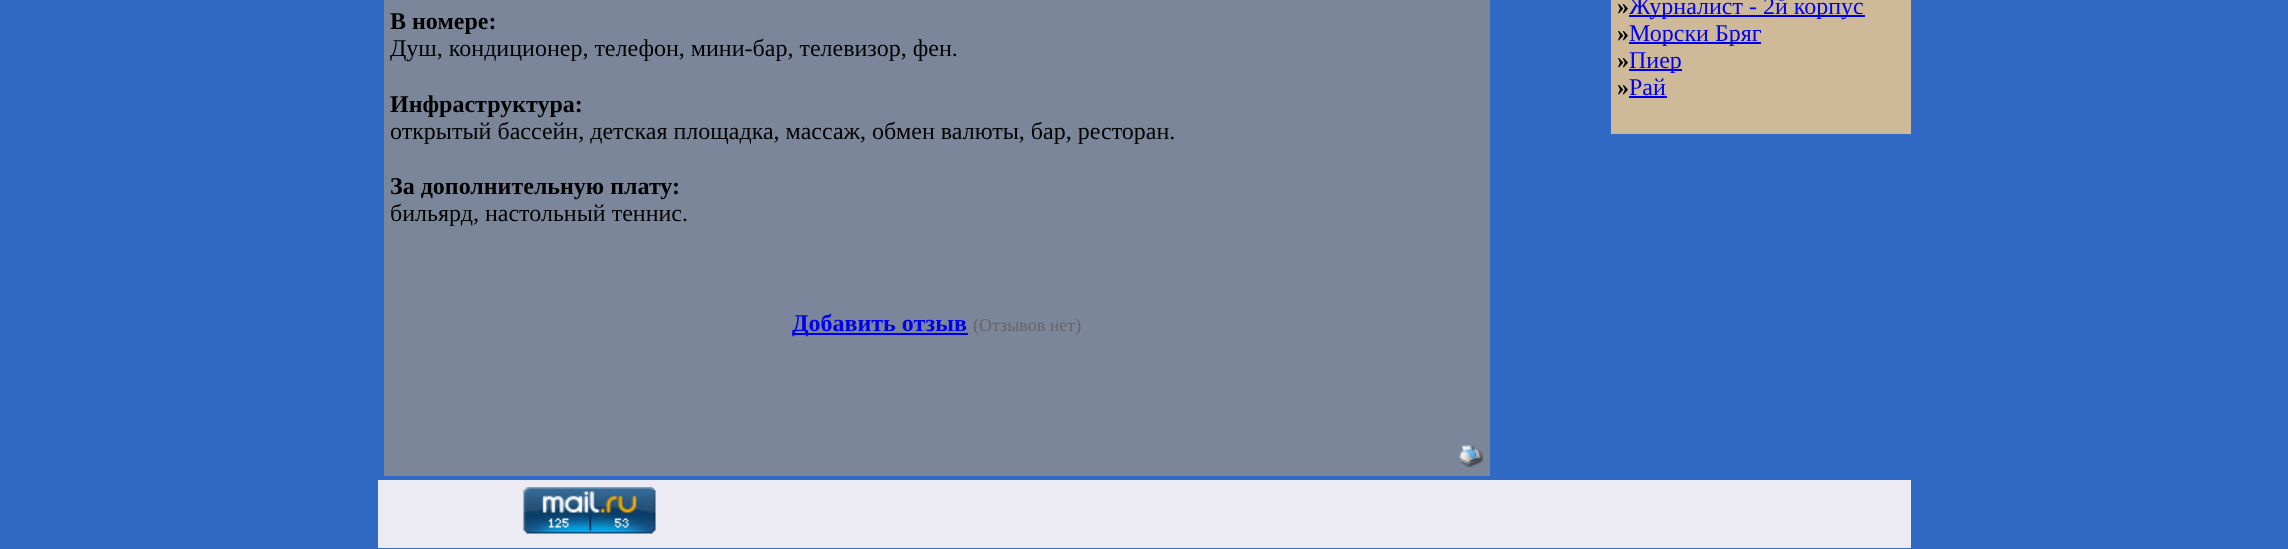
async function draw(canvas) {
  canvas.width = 2288
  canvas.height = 549
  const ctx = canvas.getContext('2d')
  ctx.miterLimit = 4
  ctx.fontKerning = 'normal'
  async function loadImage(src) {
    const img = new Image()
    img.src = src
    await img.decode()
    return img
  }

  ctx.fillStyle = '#316ac5'
  ctx.fillRect(0, 0, 2288, 549)
  ctx.fillStyle = '#7b869a'
  ctx.fillRect(384, 0, 1106, 476)
  ctx.font = 'bold 24px Liberation Serif'
  ctx.fillStyle = '#000'
  ctx.fillText('В номере:', 390, 29)
  ctx.font = '24px Liberation Serif'
  ctx.fillText('Душ, кондиционер, телефон, мини-бар, телевизор, фен.', 390, 56)
  ctx.font = 'bold 24px Liberation Serif'
  ctx.fillText('Инфраструктура:', 390, 112)
  ctx.font = '24px Liberation Serif'
  ctx.fillText('открытый бассейн, детская площадка, массаж, обмен валюты, бар, ресторан.', 390, 139)
  ctx.font = 'bold 24px Liberation Serif'
  ctx.fillText('За дополнительную плату:', 390, 194)
  ctx.font = '24px Liberation Serif'
  ctx.fillText('бильярд, настольный теннис.', 390, 221)
  ctx.fillStyle = '#00e'
  ctx.fillRect(792, 333, 176, 2)
  ctx.font = 'bold 24px Liberation Serif'
  ctx.fillText('Добавить отзыв', 792, 331)
  ctx.font = '18px Liberation Serif'
  ctx.fillStyle = '#666'
  ctx.fillText('(Отзывов нет)', 973, 331)
  ctx.drawImage(await loadImage('image0.png'), 1459, 445, 25, 23)
  ctx.fillStyle = '#ceba99'
  ctx.fillRect(1611, 0, 300, 134)
  ctx.font = 'bold 24px Liberation Serif'
  ctx.fillStyle = '#000'
  ctx.fillText('»', 1617, 14)
  ctx.fillStyle = '#00e'
  ctx.fillRect(1629, 15, 236, 2)
  ctx.font = '24px Liberation Serif'
  ctx.fillText('Журналист - 2й корпус', 1629, 14)
  ctx.font = 'bold 24px Liberation Serif'
  ctx.fillStyle = '#000'
  ctx.fillText('»', 1617, 41)
  ctx.fillStyle = '#00e'
  ctx.fillRect(1629, 42, 132, 2)
  ctx.font = '24px Liberation Serif'
  ctx.fillText('Морски Бряг', 1629, 41)
  ctx.font = 'bold 24px Liberation Serif'
  ctx.fillStyle = '#000'
  ctx.fillText('»', 1617, 68)
  ctx.fillStyle = '#00e'
  ctx.fillRect(1629, 69, 53, 2)
  ctx.font = '24px Liberation Serif'
  ctx.fillText('Пиер', 1629, 68)
  ctx.font = 'bold 24px Liberation Serif'
  ctx.fillStyle = '#000'
  ctx.fillText('»', 1617, 95)
  ctx.font = '24px Liberation Serif'
  ctx.fillStyle = '#00e'
  ctx.fillText('Рай', 1629, 95)
  ctx.fillRect(1629, 96, 38, 2)
  ctx.fillStyle = '#ecebf4'
  ctx.fillRect(378, 480, 1533, 68)
  ctx.drawImage(await loadImage('image1.png'), 523, 487, 133, 47)
}

draw(document.querySelector('canvas'))
